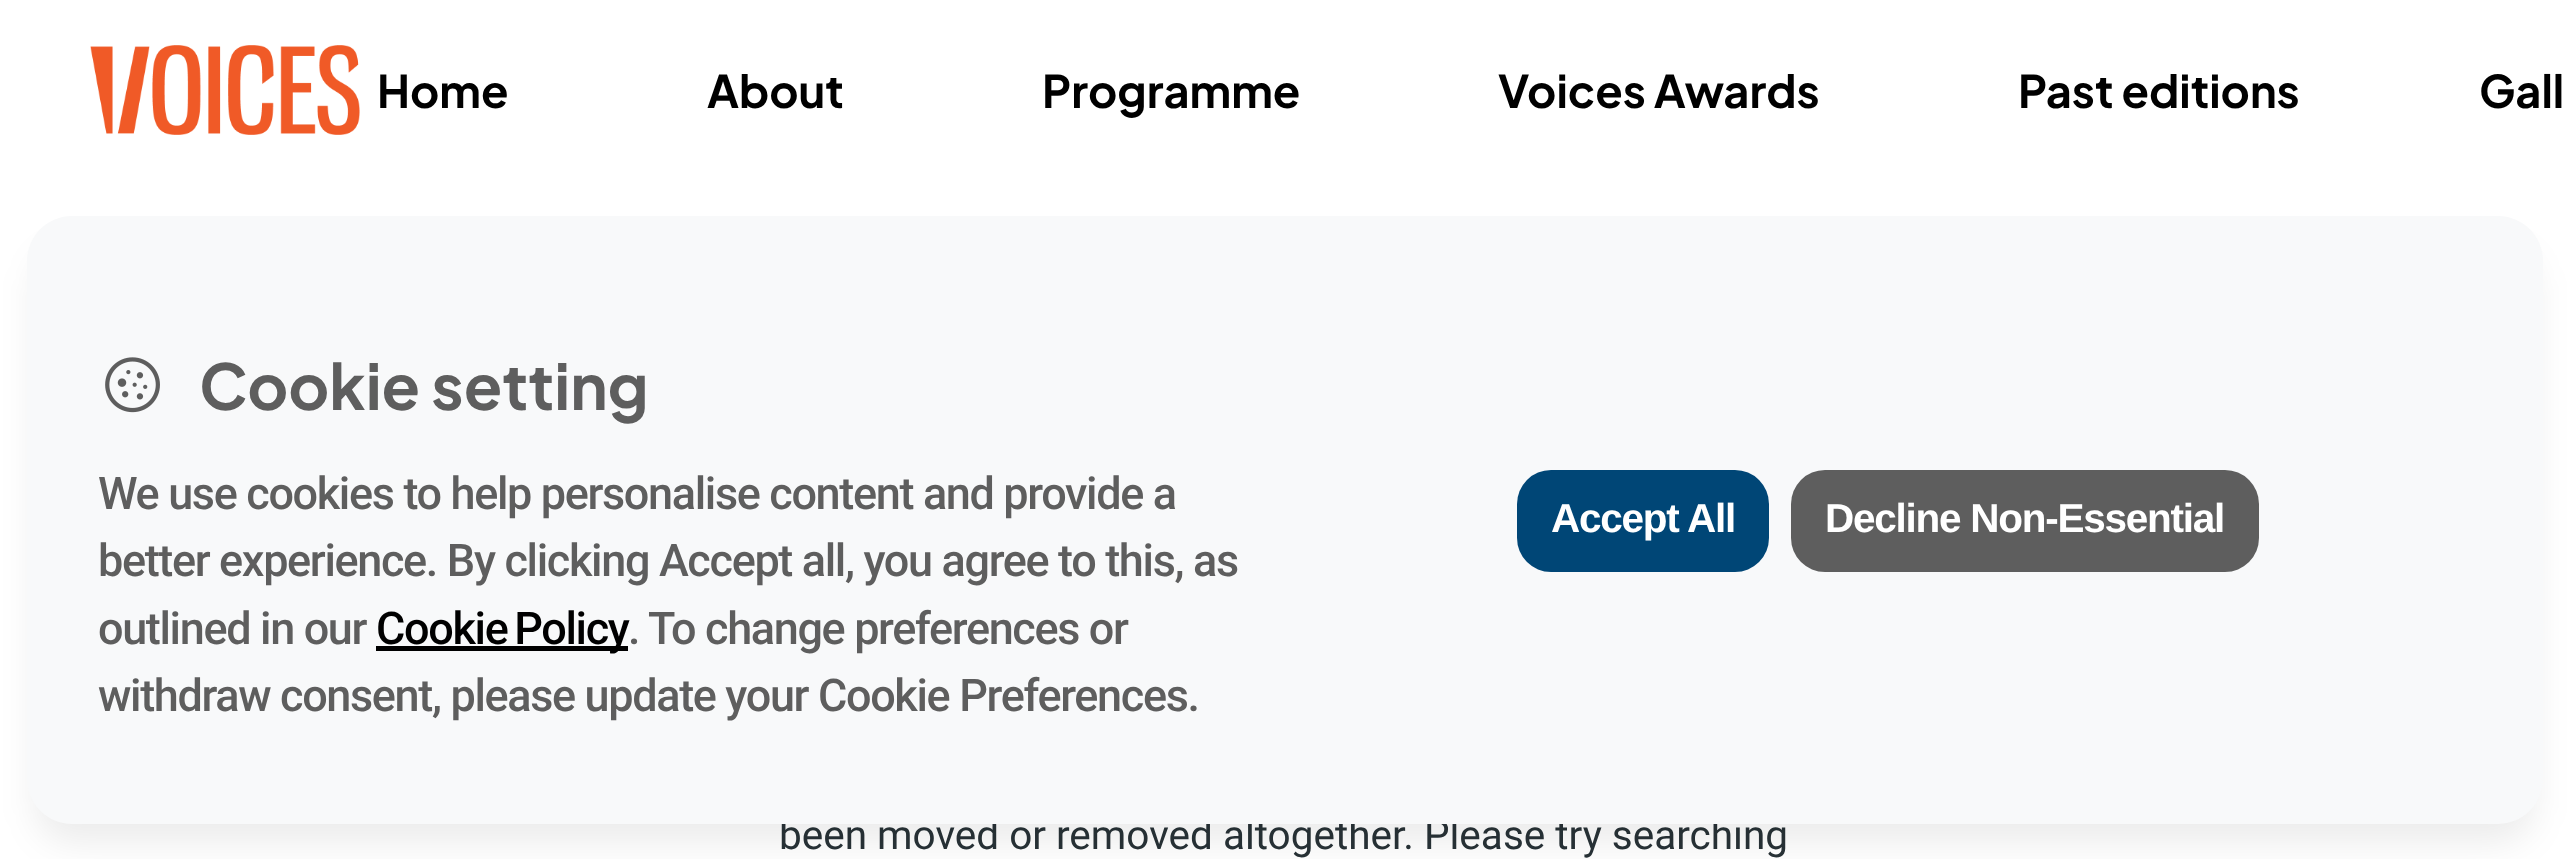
async function draw(canvas) {
  canvas.width = 2567
  canvas.height = 859
  const ctx = canvas.getContext('2d')
  ctx.miterLimit = 4
  ctx.fontKerning = 'normal'
  async function loadImage(src) {
    const img = new Image()
    img.src = src
    await img.decode()
    return img
  }

  ctx.fillStyle = '#fff'
  ctx.fillRect(0, 0, 2567, 859)
  ctx.drawImage(await loadImage('image0.png'), 90, 45, 270, 90)
  ctx.font = 'bold 45px Plus Jakarta Sans'
  ctx.fillStyle = '#000'
  ctx.fillText('Home', 377, 108)
  ctx.fillText('About', 707, 108)
  ctx.fillText('Programme', 1042, 108)
  ctx.fillText('Voices Awards', 1498, 108)
  ctx.fillText('Past editions', 2018, 108)
  ctx.fillText('Gall', 2479, 108)
  ctx.font = '40.5px Roboto'
  ctx.fillStyle = '#283237'
  ctx.fillText('been moved or removed altogether. Please try searching', 779, 849)
  ctx.fillStyle = '#00000014'
  ctx.filter = 'blur(18px)'
  ctx.beginPath()
  ctx.roundRect(36, 252, 2498, 590, 36)
  ctx.fill()
  ctx.filter = 'none'
  ctx.fillStyle = '#f8f9fa'
  ctx.beginPath()
  ctx.roundRect(27, 216, 2516, 608, 45)
  ctx.fill()
  ctx.drawImage(await loadImage('image1.png'), 105, 357, 55, 56)
  ctx.font = 'bold 63px Plus Jakarta Sans'
  ctx.fillStyle = '#5e5e5e'
  ctx.fillText('Cookie setting', 199, 410)
  ctx.letterSpacing = '-1.35px'
  ctx.font = '500 45px Roboto'
  ctx.fillText('We use cookies to help personalise content and provide a', 98, 509)
  ctx.fillText('better experience. By clicking Accept all, you agree to this, as', 98, 576)
  ctx.fillText('outlined in our', 98, 644)
  ctx.fillStyle = '#000'
  ctx.fillRect(376, 646, 252, 5)
  ctx.wordSpacing = '-3px'
  ctx.fillText('Cookie Policy', 376, 644)
  ctx.wordSpacing = '0px'
  ctx.fillStyle = '#5e5e5e'
  ctx.fillText('. To change preferences or', 628, 644)
  ctx.fillText('withdraw consent, please update your Cookie Preferences.', 98, 711)
  ctx.fillStyle = '#004676'
  ctx.beginPath()
  ctx.roundRect(1517, 470, 252, 102, 34)
  ctx.fill()
  ctx.letterSpacing = '-1.25px'
  ctx.font = 'bold 40.5px Liberation Sans'
  ctx.fillStyle = '#fff'
  ctx.fillText('Accept All', 1551, 532)
  ctx.fillStyle = '#5e5e5e'
  ctx.beginPath()
  ctx.roundRect(1791, 470, 468, 102, 34)
  ctx.fill()
  ctx.fillStyle = '#fff'
  ctx.fillText('Decline Non-Essential', 1825, 532)
}

draw(document.querySelector('canvas'))
